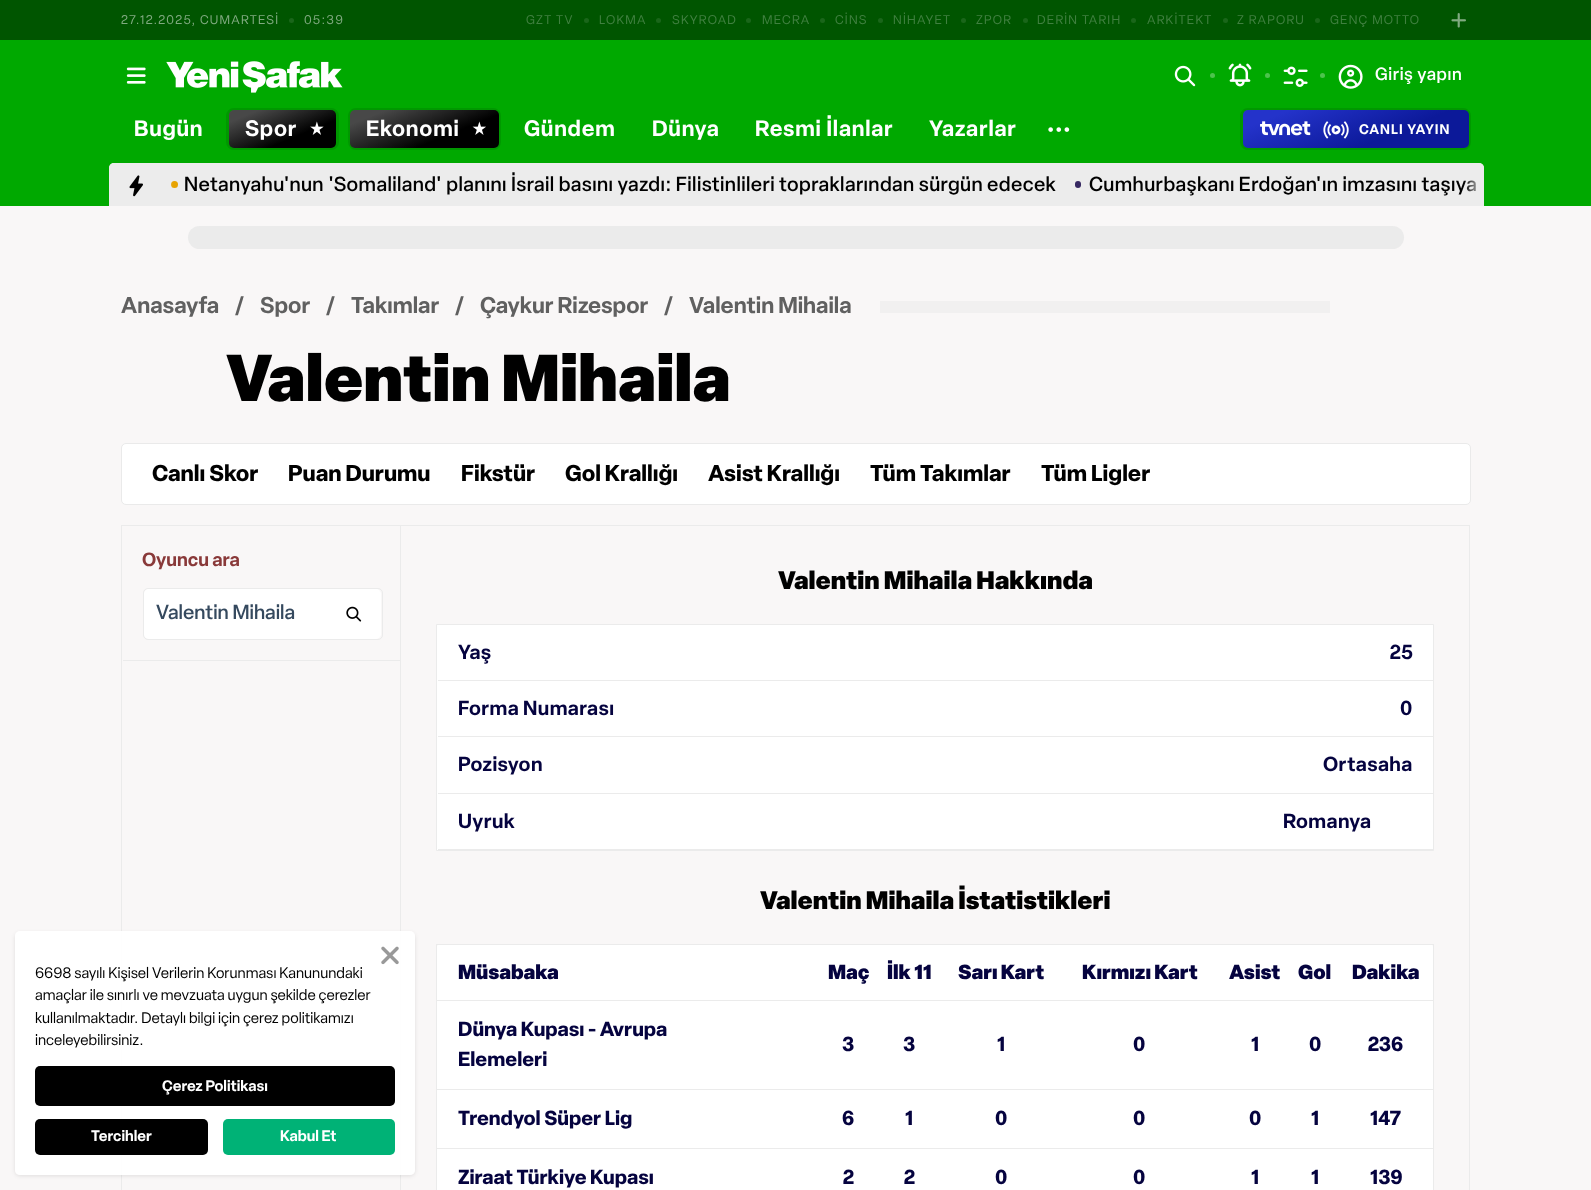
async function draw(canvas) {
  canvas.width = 1591
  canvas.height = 1190
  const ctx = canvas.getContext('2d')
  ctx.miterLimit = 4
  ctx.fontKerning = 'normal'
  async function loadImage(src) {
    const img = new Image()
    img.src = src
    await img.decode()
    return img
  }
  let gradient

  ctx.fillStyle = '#f9f7f7'
  ctx.fillRect(0, 0, 1591, 1190)
  ctx.fillStyle = '#050'
  ctx.fillRect(0, 0, 1591, 40)
  ctx.letterSpacing = '1.25px'
  ctx.font = '12.5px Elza'
  ctx.fillStyle = '#80aa80'
  ctx.fillText('27.12.2025, CUMARTESİ', 121, 24)
  ctx.fillStyle = '#1a661a'
  ctx.beginPath()
  ctx.arc(291.5, 20.5, 2.5, 0, 2 * Math.PI)
  ctx.fill()
  ctx.fillStyle = '#80aa80'
  ctx.fillText('05:39', 304, 24)
  ctx.fillStyle = '#408040'
  ctx.fillText('GZT TV', 526, 24)
  ctx.fillStyle = '#1a661a'
  ctx.beginPath()
  ctx.arc(586.5, 20.5, 2.5, 0, 2 * Math.PI)
  ctx.fill()
  ctx.fillStyle = '#408040'
  ctx.fillText('LOKMA', 599, 24)
  ctx.fillStyle = '#1a661a'
  ctx.beginPath()
  ctx.arc(658.5, 20.5, 2.5, 0, 2 * Math.PI)
  ctx.fill()
  ctx.fillStyle = '#408040'
  ctx.fillText('SKYROAD', 672, 24)
  ctx.fillStyle = '#1a661a'
  ctx.beginPath()
  ctx.arc(748.5, 20.5, 2.5, 0, 2 * Math.PI)
  ctx.fill()
  ctx.fillStyle = '#408040'
  ctx.fillText('MECRA', 762, 24)
  ctx.fillStyle = '#1a661a'
  ctx.beginPath()
  ctx.arc(822.5, 20.5, 2.5, 0, 2 * Math.PI)
  ctx.fill()
  ctx.fillStyle = '#408040'
  ctx.fillText('CİNS', 835, 24)
  ctx.fillStyle = '#1a661a'
  ctx.beginPath()
  ctx.arc(880.5, 20.5, 2.5, 0, 2 * Math.PI)
  ctx.fill()
  ctx.fillStyle = '#408040'
  ctx.fillText('NİHAYET', 893, 24)
  ctx.fillStyle = '#1a661a'
  ctx.beginPath()
  ctx.arc(963.5, 20.5, 2.5, 0, 2 * Math.PI)
  ctx.fill()
  ctx.fillStyle = '#408040'
  ctx.fillText('ZPOR', 976, 24)
  ctx.fillStyle = '#1a661a'
  ctx.beginPath()
  ctx.arc(1025.5, 20.5, 2.5, 0, 2 * Math.PI)
  ctx.fill()
  ctx.fillStyle = '#408040'
  ctx.fillText('DERİN TARIH', 1037, 24)
  ctx.fillStyle = '#1a661a'
  ctx.beginPath()
  ctx.arc(1133.5, 20.5, 2.5, 0, 2 * Math.PI)
  ctx.fill()
  ctx.fillStyle = '#408040'
  ctx.fillText('ARKİTEKT', 1147, 24)
  ctx.fillStyle = '#1a661a'
  ctx.beginPath()
  ctx.arc(1225.5, 20.5, 2.5, 0, 2 * Math.PI)
  ctx.fill()
  ctx.fillStyle = '#408040'
  ctx.fillText('Z RAPORU', 1237, 24)
  ctx.fillStyle = '#1a661a'
  ctx.beginPath()
  ctx.arc(1317.5, 20.5, 2.5, 0, 2 * Math.PI)
  ctx.fill()
  ctx.fillStyle = '#408040'
  ctx.fillText('GENÇ MOTTO', 1330, 24)
  ctx.drawImage(await loadImage('image0.png'), 1451, 13, 15, 15)
  ctx.fillStyle = '#00a900'
  ctx.fillRect(0, 40, 1591, 166)
  ctx.drawImage(await loadImage('image1.png'), 126, 67, 20, 17)
  ctx.drawImage(await loadImage('image2.png'), 166, 61, 177, 32)
  ctx.drawImage(await loadImage('image3.png'), 1174, 65, 22, 22)
  ctx.fillStyle = '#4dc34d'
  ctx.beginPath()
  ctx.arc(1212.5, 75.5, 2.5, 0, 2 * Math.PI)
  ctx.fill()
  ctx.drawImage(await loadImage('image4.png'), 1228, 63, 24, 24)
  ctx.beginPath()
  ctx.arc(1267.5, 75.5, 2.5, 0, 2 * Math.PI)
  ctx.fill()
  ctx.drawImage(await loadImage('image5.png'), 1283, 66, 25, 21)
  ctx.beginPath()
  ctx.arc(1322.5, 75.5, 2.5, 0, 2 * Math.PI)
  ctx.fill()
  ctx.drawImage(await loadImage('image6.png'), 1338, 64, 25, 25)
  ctx.letterSpacing = '0.6px'
  ctx.font = '500 17.5px Elza'
  ctx.fillStyle = '#fff'
  ctx.fillText('Giriş yapın', 1375, 80)
  ctx.letterSpacing = '0.75px'
  ctx.font = '600 22px Elza'
  ctx.fillText('Bugün', 134, 136)
  ctx.beginPath()
  ctx.roundRect(227.5, 109.5, 110, 39, 6.5)
  ctx.strokeStyle = '#009800'
  ctx.lineWidth = 3
  ctx.stroke()
  gradient = ctx.createLinearGradient(268, 94, 297, 164)
  gradient.addColorStop(0.15, '#484848')
  gradient.addColorStop(0.66, '#000')
  ctx.fillStyle = gradient
  ctx.beginPath()
  ctx.roundRect(229, 110, 107, 38, 5)
  ctx.fill()
  ctx.fillStyle = '#fff'
  ctx.fillText('Spor', 245, 136)
  ctx.drawImage(await loadImage('image7.png'), 310, 121, 14, 14)
  ctx.beginPath()
  ctx.roundRect(349.5, 109.5, 150, 39, 6.5)
  ctx.stroke()
  gradient = ctx.createLinearGradient(407, 87, 441, 171)
  gradient.addColorStop(0.15, '#484848')
  gradient.addColorStop(0.66, '#000')
  ctx.fillStyle = gradient
  ctx.beginPath()
  ctx.roundRect(350, 110, 149, 38, 5)
  ctx.fill()
  ctx.fillStyle = '#fff'
  ctx.fillText('Ekonomi', 366, 136)
  ctx.drawImage(await loadImage('image8.png'), 472, 121, 14, 14)
  ctx.fillText('Gündem', 524, 136)
  ctx.fillText('Dünya', 652, 136)
  ctx.fillText('Resmi İlanlar', 755, 136)
  ctx.fillText('Yazarlar', 929, 136)
  ctx.drawImage(await loadImage('image9.png'), 1048, 127, 22, 5)
  ctx.beginPath()
  ctx.roundRect(1241.5, 109.5, 228, 39, 6.5)
  ctx.stroke()
  gradient = ctx.createLinearGradient(1333, 73, 1378, 184)
  gradient.addColorStop(0.15, '#2433ca')
  gradient.addColorStop(0.66, '#0c1999')
  ctx.fillStyle = gradient
  ctx.beginPath()
  ctx.roundRect(1243, 110, 226, 38, 5)
  ctx.fill()
  ctx.drawImage(await loadImage('image10.png'), 1260, 121, 51, 15)
  ctx.drawImage(await loadImage('image11.png'), 1323, 121, 26, 18)
  ctx.letterSpacing = '1px'
  ctx.font = '600 13.75px Elza'
  ctx.fillStyle = '#fff'
  ctx.fillText('CANLI YAYIN', 1359, 134)
  ctx.fillStyle = '#ececec'
  ctx.beginPath()
  ctx.roundRect(109, 163, 1375, 43, [5, 5, 0, 0])
  ctx.fill()
  ctx.beginPath()
  ctx.roundRect(109, 163, 44, 43, [5, 0, 0, 0])
  ctx.fill()
  ctx.drawImage(await loadImage('image12.png'), 129, 175, 14, 22)
  ctx.fillStyle = '#e7a300'
  ctx.beginPath()
  ctx.arc(174.5, 184.5, 3.5, 0, 2 * Math.PI)
  ctx.fill()
  gradient = ctx.createLinearGradient(153, 184, 173, 184)
  gradient.addColorStop(0.35, '#ececec')
  gradient.addColorStop(1, '#ececec00')
  ctx.fillStyle = gradient
  ctx.fillRect(171, 182, 2, 5)
  ctx.letterSpacing = '0.38px'
  ctx.font = '500 20px Elza'
  ctx.fillStyle = '#000'
  ctx.fillText('Cumhurbaşkanı Erdoğan\'ın imzasını taşıya', 1089, 191)
  gradient = ctx.createLinearGradient(1453, 184, 1484, 184)
  gradient.addColorStop(0.35, '#ececec00')
  gradient.addColorStop(1, '#ececec')
  ctx.fillStyle = gradient
  ctx.beginPath()
  ctx.roundRect(1453, 163, 31, 43, [0, 5, 0, 0])
  ctx.fill()
  ctx.fillStyle = '#000'
  ctx.fillText('Netanyahu\'nun \'Somaliland\' planını İsrail basını yazdı: Filistinlileri topraklarından sürgün edecek', 184, 191)
  ctx.fillStyle = '#362861'
  ctx.beginPath()
  ctx.roundRect(1075, 181, 6, 7, 3)
  ctx.fill()
  ctx.fillStyle = '#ebebeb'
  ctx.beginPath()
  ctx.roundRect(188, 226, 1216, 23, 11.5)
  ctx.fill()
  ctx.letterSpacing = '0px'
  ctx.font = '600 22.5px Elza'
  ctx.fillStyle = '#606060'
  ctx.fillText('Anasayfa', 121, 313)
  ctx.fillText('/', 234, 313)
  ctx.fillText('Spor', 260, 313)
  ctx.fillText('/', 325, 313)
  ctx.fillText('Takımlar', 351, 313)
  ctx.fillText('/', 454, 313)
  ctx.fillText('Çaykur Rizespor', 480, 313)
  ctx.fillText('/', 663, 313)
  ctx.fillText('Valentin Mihaila', 689, 313)
  ctx.fillStyle = '#f1f0f0'
  ctx.fillRect(880, 301, 450, 12)
  ctx.font = '900 65px Elza'
  ctx.fillStyle = '#000'
  ctx.fillText('Valentin Mihaila', 226, 401)
  ctx.fillStyle = '#fff'
  ctx.beginPath()
  ctx.roundRect(121.5, 443.5, 1349, 61, 4.5)
  ctx.fill()
  ctx.strokeStyle = '#eaeaea'
  ctx.lineWidth = 1
  ctx.stroke()
  ctx.font = 'bold 22.5px Elza'
  ctx.fillStyle = '#000'
  ctx.fillText('Canlı Skor', 152, 481)
  ctx.fillText('Puan Durumu', 288, 481)
  ctx.fillText('Fikstür', 461, 481)
  ctx.fillText('Gol Krallığı', 565, 481)
  ctx.fillText('Asist Krallığı', 708, 481)
  ctx.fillText('Tüm Takımlar', 870, 481)
  ctx.fillText('Tüm Ligler', 1041, 481)
  ctx.strokeStyle = '#ebebeb'
  ctx.strokeRect(121.5, 525.5, 279, 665)
  ctx.fillStyle = '#ebebeb'
  ctx.fillRect(123, 660, 277, 1)
  ctx.font = '600 18.75px Elza'
  ctx.fillStyle = '#893939'
  ctx.fillText('Oyuncu ara', 142, 566)
  ctx.beginPath()
  ctx.roundRect(143.5, 588.5, 239, 51, 4.5)
  ctx.stroke()
  ctx.fillStyle = '#fff'
  ctx.beginPath()
  ctx.roundRect(144, 589, 237, 50, 5)
  ctx.fill()
  ctx.font = '500 20px Elza'
  ctx.fillStyle = '#35495e'
  ctx.fillText('Valentin Mihaila', 156, 619)
  ctx.drawImage(await loadImage('image13.png'), 346, 606, 16, 16)
  ctx.fillStyle = '#ebebeb'
  ctx.fillRect(401, 525, 1069, 1)
  ctx.fillRect(1469, 525, 1, 665)
  ctx.font = '900 25px Elza'
  ctx.fillStyle = '#000'
  ctx.fillText('Valentin Mihaila Hakkında', 778, 589)
  ctx.fillStyle = '#fff'
  ctx.beginPath()
  ctx.rect(436.5, 624.5, 997, 226)
  ctx.fill()
  ctx.stroke()
  ctx.fillStyle = '#ebebeb'
  ctx.fillRect(438, 680, 995, 1)
  ctx.letterSpacing = '0.4px'
  ctx.font = '600 20px Elza'
  ctx.fillStyle = '#05033f'
  ctx.fillText('Yaş', 458, 659)
  ctx.fillText('25', 1390, 659)
  ctx.fillStyle = '#ebebeb'
  ctx.fillRect(438, 736, 995, 1)
  ctx.fillStyle = '#05033f'
  ctx.fillText('Forma Numarası', 458, 715)
  ctx.fillText('0', 1400, 715)
  ctx.fillStyle = '#ebebeb'
  ctx.fillRect(438, 793, 995, 1)
  ctx.fillStyle = '#05033f'
  ctx.fillText('Pozisyon', 458, 771)
  ctx.fillText('Ortasaha', 1323, 771)
  ctx.fillStyle = '#ebebeb'
  ctx.fillRect(438, 849, 995, 1)
  ctx.fillStyle = '#05033f'
  ctx.fillText('Uyruk', 458, 828)
  ctx.fillText('Romanya', 1283, 828)
  ctx.letterSpacing = '0px'
  ctx.font = '900 25px Elza'
  ctx.fillStyle = '#000'
  ctx.fillText('Valentin Mihaila İstatistikleri', 760, 909)
  ctx.fillStyle = '#fff'
  ctx.beginPath()
  ctx.roundRect(436, 944, 998, 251, 5)
  ctx.fill()
  ctx.fillStyle = '#ebebeb'
  ctx.fillRect(436, 944, 998, 1)
  ctx.fillRect(1433, 944, 1, 246)
  ctx.fillRect(436, 944, 1, 246)
  ctx.font = '900 20px Elza'
  ctx.fillStyle = '#05033f'
  ctx.fillText('Müsabaka', 458, 979)
  ctx.fillText('Maç', 828, 979)
  ctx.fillText('İlk 11', 887, 979)
  ctx.fillText('Sarı Kart', 958, 979)
  ctx.fillText('Kırmızı Kart', 1082, 979)
  ctx.fillText('Asist', 1229, 979)
  ctx.fillText('Gol', 1298, 979)
  ctx.fillText('Dakika', 1352, 979)
  ctx.font = 'bold 20px Elza'
  ctx.fillText('Dünya Kupası - Avrupa', 458, 1036)
  ctx.fillText('Elemeleri', 458, 1066)
  ctx.fillText('3', 842, 1051)
  ctx.fillText('3', 903, 1051)
  ctx.fillText('1', 997, 1051)
  ctx.fillText('0', 1133, 1051)
  ctx.fillText('1', 1251, 1051)
  ctx.fillText('0', 1309, 1051)
  ctx.fillStyle = '#ebebeb'
  ctx.fillRect(436, 1000, 998, 1)
  ctx.fillStyle = '#05033f'
  ctx.fillText('236', 1368, 1051)
  ctx.fillText('Trendyol Süper Lig', 458, 1125)
  ctx.fillText('6', 842, 1125)
  ctx.fillText('1', 905, 1125)
  ctx.fillText('0', 995, 1125)
  ctx.fillText('0', 1133, 1125)
  ctx.fillText('0', 1249, 1125)
  ctx.fillText('1', 1311, 1125)
  ctx.fillStyle = '#ebebeb'
  ctx.fillRect(436, 1089, 998, 1)
  ctx.fillStyle = '#05033f'
  ctx.fillText('147', 1370, 1125)
  ctx.fillText('Ziraat Türkiye Kupası', 458, 1184)
  ctx.fillText('2', 843, 1184)
  ctx.fillText('2', 904, 1184)
  ctx.fillText('0', 995, 1184)
  ctx.fillText('0', 1133, 1184)
  ctx.fillText('1', 1251, 1184)
  ctx.fillText('1', 1311, 1184)
  ctx.fillStyle = '#ebebeb'
  ctx.fillRect(436, 1148, 998, 1)
  ctx.fillStyle = '#05033f'
  ctx.fillText('139', 1370, 1184)
  ctx.save()
  ctx.beginPath()
  ctx.moveTo(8, 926)
  ctx.lineTo(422, 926)
  ctx.lineTo(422, 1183)
  ctx.lineTo(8, 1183)
  ctx.closePath()
  ctx.moveTo(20, 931)
  ctx.lineTo(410, 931)
  ctx.bezierCurveTo(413, 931, 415, 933, 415, 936)
  ctx.lineTo(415, 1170)
  ctx.bezierCurveTo(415, 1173, 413, 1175, 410, 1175)
  ctx.lineTo(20, 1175)
  ctx.bezierCurveTo(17, 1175, 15, 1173, 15, 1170)
  ctx.lineTo(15, 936)
  ctx.bezierCurveTo(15, 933, 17, 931, 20, 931)
  ctx.closePath()
  ctx.clip('evenodd')
  ctx.fillStyle = '#0000001a'
  ctx.filter = 'blur(2px)'
  ctx.beginPath()
  ctx.roundRect(15, 933, 400, 243, 5)
  ctx.fill()
  ctx.filter = 'none'
  ctx.restore()
  ctx.fillStyle = '#fffffff2'
  ctx.beginPath()
  ctx.roundRect(15, 931, 400, 244, 5)
  ctx.fill()
  ctx.drawImage(await loadImage('image14.png'), 381, 946, 18, 19)
  ctx.font = '15px Elza'
  ctx.fillStyle = '#000'
  ctx.fillText('6698 sayılı Kişisel Verilerin Korunması Kanunundaki', 35, 978)
  ctx.fillText('amaçlar ile sınırlı ve mevzuata uygun şekilde çerezler', 35, 1000)
  ctx.fillText('kullanılmaktadır. Detaylı bilgi için çerez politikamızı', 35, 1023)
  ctx.fillText('inceleyebilirsiniz.', 35, 1045)
  ctx.beginPath()
  ctx.roundRect(35, 1066, 360, 40, 5)
  ctx.fill()
  ctx.font = '600 15px Elza'
  ctx.fillStyle = '#fff'
  ctx.fillText('Çerez Politikası', 162, 1091)
  ctx.fillStyle = '#000'
  ctx.beginPath()
  ctx.roundRect(35, 1119, 173, 36, 5)
  ctx.fill()
  ctx.fillStyle = '#fff'
  ctx.fillText('Tercihler', 91, 1141)
  ctx.fillStyle = '#00b276'
  ctx.beginPath()
  ctx.roundRect(223, 1119, 172, 36, 5)
  ctx.fill()
  ctx.fillStyle = '#fff'
  ctx.fillText('Kabul Et', 280, 1141)
}

draw(document.querySelector('canvas'))
